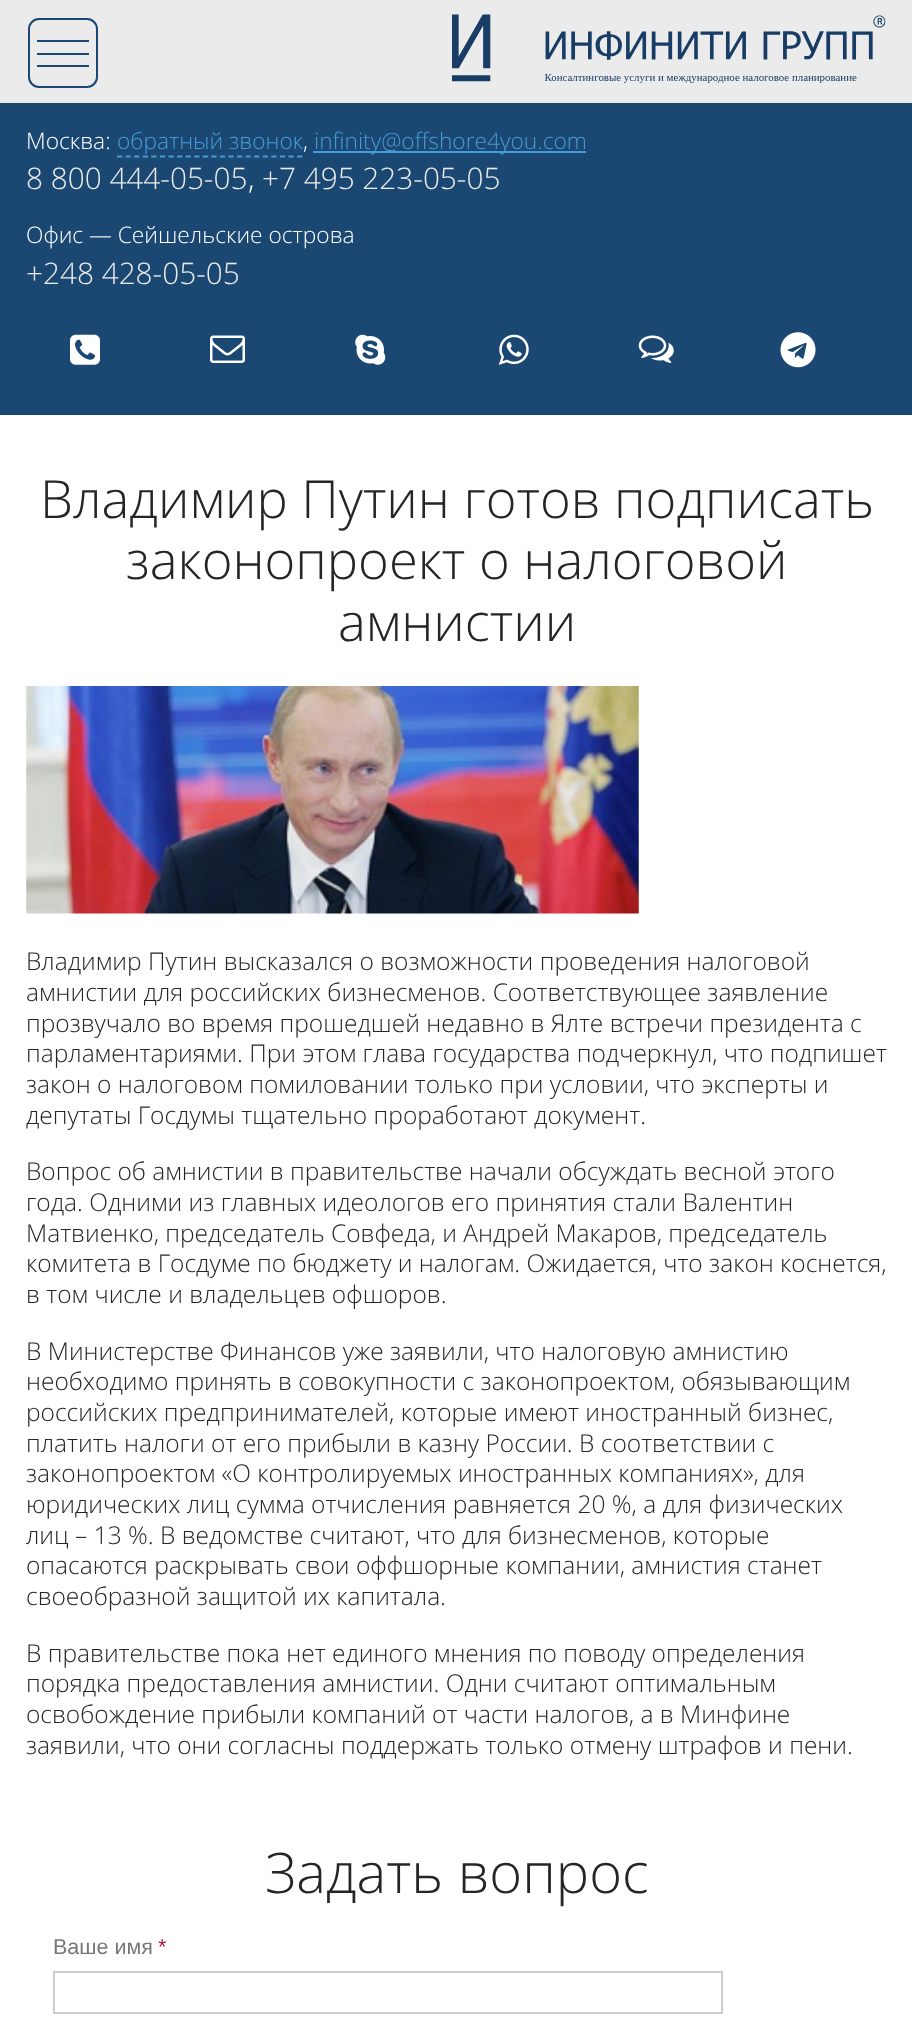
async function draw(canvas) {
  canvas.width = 912
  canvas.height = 2036
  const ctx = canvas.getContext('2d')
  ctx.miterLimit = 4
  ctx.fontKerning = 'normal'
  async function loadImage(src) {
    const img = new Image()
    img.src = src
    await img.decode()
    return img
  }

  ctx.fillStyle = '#fff'
  ctx.fillRect(0, 0, 912, 2036)
  ctx.fillStyle = '#ebebeb'
  ctx.fillRect(0, 0, 912, 103)
  ctx.beginPath()
  ctx.roundRect(29, 19, 68, 68, 10)
  ctx.strokeStyle = '#1b4872'
  ctx.lineWidth = 2
  ctx.stroke()
  ctx.fillStyle = '#1b4872'
  ctx.fillRect(37, 53, 52, 2)
  ctx.fillRect(37, 40, 52, 2)
  ctx.fillRect(37, 65, 52, 2)
  ctx.drawImage(await loadImage('image0.png'), 452, 14, 434, 69)
  ctx.fillRect(0, 103, 912, 312)
  ctx.font = '300 22.75px Open Sans'
  ctx.fillStyle = '#fff'
  ctx.fillText('Москва:', 26, 149)
  ctx.fillStyle = '#469cd6'
  ctx.fillText('обратный звонок', 117, 149)
  ctx.beginPath()
  ctx.moveTo(117, 156.5)
  ctx.lineTo(303, 156.5)
  ctx.strokeStyle = '#469cd6'
  ctx.lineWidth = 1.8
  ctx.setLineDash([5.25, 3.32])
  ctx.stroke()
  ctx.fillStyle = '#fff'
  ctx.fillText(',', 303, 149)
  ctx.fillStyle = '#469cd6'
  ctx.fillRect(313, 151, 273, 2)
  ctx.fillText('infinity@offshore4you.com', 314, 149)
  ctx.font = '300 29.75px Open Sans'
  ctx.fillStyle = '#ebebeb'
  ctx.fillText('8 800 444-05-05', 26, 189)
  ctx.fillStyle = '#fff'
  ctx.fillText(',', 248, 189)
  ctx.fillStyle = '#ebebeb'
  ctx.fillText('+7 495 223-05-05', 262, 189)
  ctx.font = '300 22.75px Open Sans'
  ctx.fillStyle = '#fff'
  ctx.fillText('Офис — Сейшельские острова', 26, 243)
  ctx.font = '300 29.75px Open Sans'
  ctx.fillStyle = '#ebebeb'
  ctx.fillText('+248 428-05-05', 26, 284)
  ctx.drawImage(await loadImage('image1.png'), 70, 334, 30, 31)
  ctx.drawImage(await loadImage('image2.png'), 210, 335, 35, 28)
  ctx.drawImage(await loadImage('image3.png'), 355, 334, 31, 31)
  ctx.drawImage(await loadImage('image4.png'), 498, 334, 31, 31)
  ctx.drawImage(await loadImage('image5.png'), 638, 335, 36, 28)
  ctx.drawImage(await loadImage('image6.png'), 780, 332, 36, 36)
  ctx.font = '300 52.5px Open Sans'
  ctx.fillStyle = '#252525'
  ctx.fillText('Владимир Путин готов подписать', 40, 518)
  ctx.fillText('законопроект о налоговой', 126, 579)
  ctx.fillText('амнистии', 338, 641)
  ctx.drawImage(await loadImage('image7.png'), 26, 686, 613, 228)
  ctx.font = '300 24.5px Open Sans'
  ctx.fillText('Владимир Путин высказался о возможности проведения налоговой', 26, 970)
  ctx.fillText('амнистии для российских бизнесменов. Соответствующее заявление', 26, 1001)
  ctx.fillText('прозвучало во время прошедшей недавно в Ялте встречи президента с', 26, 1032)
  ctx.fillText('парламентариями. При этом глава государства подчеркнул, что подпишет', 26, 1062)
  ctx.fillText('закон о налоговом помиловании только при условии, что эксперты и', 26, 1093)
  ctx.fillText('депутаты Госдумы тщательно проработают документ.', 26, 1124)
  ctx.fillText('Вопрос об амнистии в правительстве начали обсуждать весной этого', 26, 1180)
  ctx.fillText('года. Одними из главных идеологов его принятия стали Валентин', 26, 1211)
  ctx.fillText('Матвиенко, председатель Совфеда, и Андрей Макаров, председатель', 26, 1242)
  ctx.fillText('комитета в Госдуме по бюджету и налогам. Ожидается, что закон коснется,', 26, 1272)
  ctx.fillText('в том числе и владельцев офшоров.', 26, 1303)
  ctx.fillText('В Министерстве Финансов уже заявили, что налоговую амнистию', 26, 1360)
  ctx.fillText('необходимо принять в совокупности с законопроектом, обязывающим', 26, 1390)
  ctx.fillText('российских предпринимателей, которые имеют иностранный бизнес,', 26, 1421)
  ctx.fillText('платить налоги от его прибыли в казну России. В соответствии с', 26, 1452)
  ctx.fillText('законопроектом «О контролируемых иностранных компаниях», для', 26, 1482)
  ctx.fillText('юридических лиц сумма отчисления равняется 20 %, а для физических', 26, 1513)
  ctx.fillText('лиц – 13 %. В ведомстве считают, что для бизнесменов, которые', 26, 1544)
  ctx.fillText('опасаются раскрывать свои оффшорные компании, амнистия станет', 26, 1574)
  ctx.fillText('своеобразной защитой их капитала.', 26, 1605)
  ctx.fillText('В правительстве пока нет единого мнения по поводу определения', 26, 1662)
  ctx.fillText('порядка предоставления амнистии. Одни считают оптимальным', 26, 1692)
  ctx.fillText('освобождение прибыли компаний от части налогов, а в Минфине', 26, 1723)
  ctx.fillText('заявили, что они согласны поддержать только отмену штрафов и пени.', 26, 1754)
  ctx.font = '300 56px Open Sans'
  ctx.fillText('Задать вопрос', 265, 1893)
  ctx.font = '21.5px Liberation Sans'
  ctx.fillStyle = '#78767a'
  ctx.fillText('Ваше имя', 53, 1954)
  ctx.fillStyle = '#b21a41'
  ctx.fillText('*', 158, 1954)
  ctx.strokeStyle = '#ccc'
  ctx.lineWidth = 2
  ctx.setLineDash([])
  ctx.strokeRect(54, 1972, 668, 41)
}

draw(document.querySelector('canvas'))
